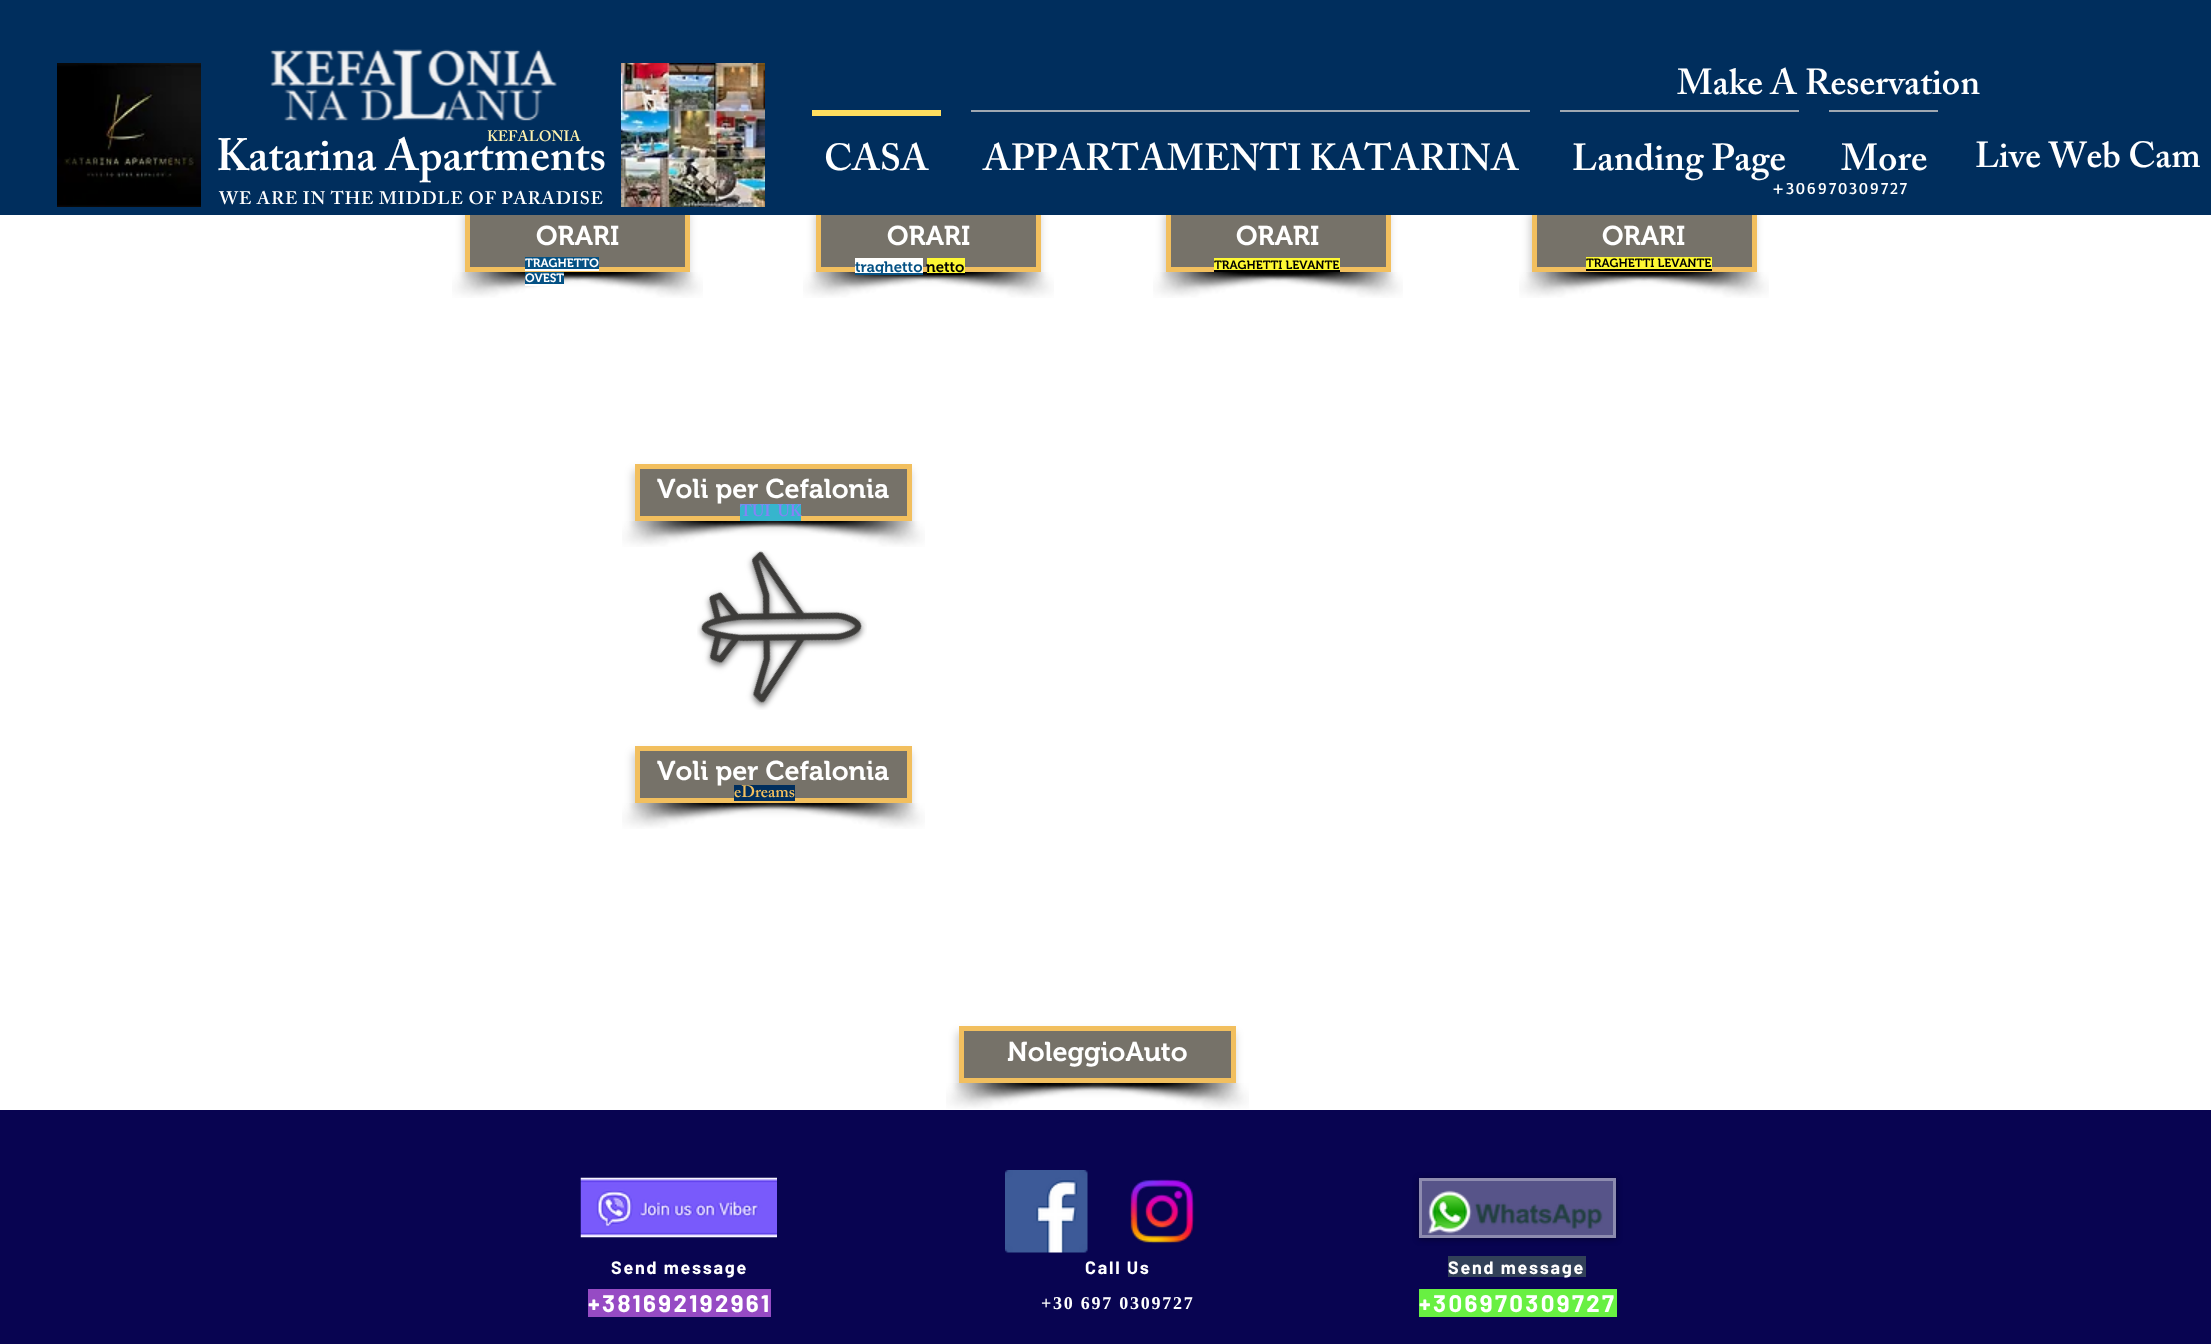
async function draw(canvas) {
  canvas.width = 2211
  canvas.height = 1344
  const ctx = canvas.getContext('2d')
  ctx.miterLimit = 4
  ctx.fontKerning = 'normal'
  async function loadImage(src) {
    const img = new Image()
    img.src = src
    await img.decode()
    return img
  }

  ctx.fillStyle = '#fff'
  ctx.fillRect(0, 0, 2211, 1344)
  ctx.drawImage(await loadImage('image3.png'), 452, 272, 223, 26)
  ctx.drawImage(await loadImage('image4.png'), 480, 272, 223, 26)
  ctx.save()
  ctx.beginPath()
  ctx.moveTo(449, 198)
  ctx.lineTo(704, 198)
  ctx.lineTo(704, 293)
  ctx.lineTo(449, 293)
  ctx.closePath()
  ctx.moveTo(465, 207)
  ctx.lineTo(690, 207)
  ctx.lineTo(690, 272)
  ctx.lineTo(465, 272)
  ctx.closePath()
  ctx.clip('evenodd')
  ctx.fillStyle = '#00000033'
  ctx.filter = 'blur(4.5px)'
  ctx.beginPath()
  ctx.rect(464, 213, 225, 65)
  ctx.fill()
  ctx.filter = 'none'
  ctx.restore()
  ctx.fillStyle = '#544f43cc'
  ctx.fillRect(470, 215, 215, 52)
  ctx.strokeStyle = '#f2bf5e'
  ctx.lineWidth = 5
  ctx.strokeRect(467.5, 209.5, 220, 60)
  ctx.drawImage(await loadImage('image5.png'), 803, 272, 223, 26)
  ctx.drawImage(await loadImage('image6.png'), 831, 272, 223, 26)
  ctx.save()
  ctx.beginPath()
  ctx.moveTo(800, 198)
  ctx.lineTo(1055, 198)
  ctx.lineTo(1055, 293)
  ctx.lineTo(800, 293)
  ctx.closePath()
  ctx.moveTo(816, 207)
  ctx.lineTo(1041, 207)
  ctx.lineTo(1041, 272)
  ctx.lineTo(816, 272)
  ctx.closePath()
  ctx.clip('evenodd')
  ctx.fillStyle = '#00000033'
  ctx.filter = 'blur(4.5px)'
  ctx.beginPath()
  ctx.rect(815, 213, 225, 65)
  ctx.fill()
  ctx.filter = 'none'
  ctx.restore()
  ctx.fillRect(821, 215, 215, 52)
  ctx.strokeRect(818.5, 209.5, 220, 60)
  ctx.drawImage(await loadImage('image7.png'), 1153, 272, 223, 26)
  ctx.drawImage(await loadImage('image8.png'), 1180, 272, 223, 26)
  ctx.save()
  ctx.beginPath()
  ctx.moveTo(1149, 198)
  ctx.lineTo(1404, 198)
  ctx.lineTo(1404, 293)
  ctx.lineTo(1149, 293)
  ctx.closePath()
  ctx.moveTo(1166, 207)
  ctx.lineTo(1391, 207)
  ctx.lineTo(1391, 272)
  ctx.lineTo(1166, 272)
  ctx.closePath()
  ctx.clip('evenodd')
  ctx.fillStyle = '#00000033'
  ctx.filter = 'blur(4.5px)'
  ctx.beginPath()
  ctx.rect(1164, 213, 225, 65)
  ctx.fill()
  ctx.filter = 'none'
  ctx.restore()
  ctx.fillRect(1171, 215, 215, 52)
  ctx.strokeRect(1168.5, 209.5, 220, 60)
  ctx.drawImage(await loadImage('image9.png'), 1519, 272, 223, 26)
  ctx.drawImage(await loadImage('image10.png'), 1546, 272, 223, 26)
  ctx.save()
  ctx.beginPath()
  ctx.moveTo(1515, 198)
  ctx.lineTo(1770, 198)
  ctx.lineTo(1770, 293)
  ctx.lineTo(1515, 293)
  ctx.closePath()
  ctx.moveTo(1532, 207)
  ctx.lineTo(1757, 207)
  ctx.lineTo(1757, 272)
  ctx.lineTo(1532, 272)
  ctx.closePath()
  ctx.clip('evenodd')
  ctx.fillStyle = '#00000033'
  ctx.filter = 'blur(4.5px)'
  ctx.beginPath()
  ctx.rect(1530, 213, 225, 65)
  ctx.fill()
  ctx.filter = 'none'
  ctx.restore()
  ctx.fillRect(1537, 215, 215, 52)
  ctx.strokeRect(1534.5, 209.5, 220, 60)
  ctx.fillStyle = '#002e5d'
  ctx.fillRect(0, 0, 2211, 215)
  ctx.drawImage(await loadImage('image0.png'), 57, 63, 144, 144)
  ctx.drawImage(await loadImage('image1.png'), 270, 49, 287, 72)
  ctx.drawImage(await loadImage('image2.png'), 621, 63, 144, 144)
  ctx.font = '600 36px "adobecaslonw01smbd"'
  ctx.fillStyle = '#fff'
  ctx.fillText('Make A Reservation', 1677, 94)
  ctx.font = '600 45px "adobecaslonw01smbd"'
  ctx.fillText('Katarina Apartments', 216, 170)
  ctx.font = '600 15px "adobecaslonw01smbd"'
  ctx.fillStyle = '#fef2ae'
  ctx.fillText('KEFALONIA', 487, 141)
  ctx.fillStyle = '#ffde5f'
  ctx.fillRect(812, 110, 129, 6)
  ctx.font = '600 37.5px "adobecaslonw01smbd"'
  ctx.fillStyle = '#fff'
  ctx.fillText('CASA', 824, 170)
  ctx.fillStyle = '#9fa8b2'
  ctx.fillRect(971, 110, 559, 2)
  ctx.fillStyle = '#fff'
  ctx.fillText('APPARTAMENTI KATARINA', 983, 170)
  ctx.fillStyle = '#9fa8b2'
  ctx.fillRect(1560, 110, 239, 2)
  ctx.fillStyle = '#fff'
  ctx.fillText('Landing Page', 1572, 170)
  ctx.fillStyle = '#9fa8b2'
  ctx.fillRect(1829, 110, 109, 2)
  ctx.fillStyle = '#fff'
  ctx.fillText('More', 1841, 170)
  ctx.font = '600 36px "adobecaslonw01smbd"'
  ctx.fillText('Live Web Cam', 1975, 167)
  ctx.letterSpacing = '1.6px'
  ctx.font = '16.5px Basic'
  ctx.fillText('+306970309727', 1772, 194)
  ctx.letterSpacing = '0.9px'
  ctx.font = '600 18px "adobecaslonw01smbd"'
  ctx.fillText('WE ARE IN THE MIDDLE OF PARADISE', 219, 204)
  ctx.letterSpacing = '0px'
  ctx.font = '600 27px "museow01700"'
  ctx.fillText('ORARI', 536, 245)
  ctx.fillText('ORARI', 887, 245)
  ctx.fillText('ORARI', 1236, 245)
  ctx.fillText('ORARI', 1602, 245)
  ctx.fillStyle = '#045184'
  ctx.fillRect(525, 257, 74, 12)
  ctx.font = '600 12px "museow01700"'
  ctx.fillStyle = '#fff'
  ctx.fillText('TRAGHETTO', 525, 267)
  ctx.fillRect(525, 269, 74, 2)
  ctx.fillStyle = '#045184'
  ctx.fillRect(525, 272, 39, 12)
  ctx.fillStyle = '#fff'
  ctx.fillText('OVEST', 525, 282)
  ctx.fillRect(525, 284, 39, 2)
  ctx.fillStyle = '#fffffe'
  ctx.fillRect(855, 258, 68, 15)
  ctx.fillStyle = '#045184'
  ctx.fillRect(855, 273, 68, 2)
  ctx.font = '600 15px "museow01700"'
  ctx.fillText('traghetto', 855, 272)
  ctx.fillStyle = '#fdf733'
  ctx.fillRect(927, 258, 38, 15)
  ctx.fillStyle = '#000'
  ctx.fillText('netto', 926, 272)
  ctx.fillRect(927, 273, 38, 2)
  ctx.fillStyle = '#fdf733'
  ctx.fillRect(1214, 258, 126, 12)
  ctx.font = '600 12px "museow01700"'
  ctx.fillStyle = '#000'
  ctx.fillText('TRAGHETTI LEVANTE', 1214, 269)
  ctx.fillRect(1214, 270, 126, 2)
  ctx.fillStyle = '#fdf733'
  ctx.fillRect(1586, 257, 126, 12)
  ctx.fillStyle = '#000'
  ctx.fillText('TRAGHETTI LEVANTE', 1586, 267)
  ctx.fillRect(1586, 269, 126, 2)
  ctx.drawImage(await loadImage('image11.png'), 622, 521, 223, 26)
  ctx.drawImage(await loadImage('image12.png'), 720, 521, 205, 26)
  ctx.save()
  ctx.beginPath()
  ctx.moveTo(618, 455)
  ctx.lineTo(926, 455)
  ctx.lineTo(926, 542)
  ctx.lineTo(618, 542)
  ctx.closePath()
  ctx.moveTo(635, 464)
  ctx.lineTo(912, 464)
  ctx.lineTo(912, 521)
  ctx.lineTo(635, 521)
  ctx.closePath()
  ctx.clip('evenodd')
  ctx.fillStyle = '#00000033'
  ctx.filter = 'blur(4.5px)'
  ctx.beginPath()
  ctx.rect(633, 470, 278, 57)
  ctx.fill()
  ctx.filter = 'none'
  ctx.restore()
  ctx.fillStyle = '#544f43cc'
  ctx.beginPath()
  ctx.rect(637.5, 466.5, 272, 52)
  ctx.fill()
  ctx.stroke()
  ctx.font = '600 27px "museow01700"'
  ctx.fillStyle = '#fff'
  ctx.fillText('Voli per Cefalonia', 657, 498)
  ctx.fillStyle = '#36b5cd'
  ctx.fillRect(740, 504, 61, 17)
  ctx.font = '600 16.5px "adobecaslonw01smbd"'
  ctx.fillStyle = '#8782f6'
  ctx.fillText('TUI  UK', 740, 516)
  ctx.drawImage(await loadImage('image13.png'), 697, 550, 170, 160)
  ctx.drawImage(await loadImage('image11.png'), 622, 803, 223, 26)
  ctx.drawImage(await loadImage('image12.png'), 720, 803, 205, 26)
  ctx.save()
  ctx.beginPath()
  ctx.moveTo(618, 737)
  ctx.lineTo(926, 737)
  ctx.lineTo(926, 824)
  ctx.lineTo(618, 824)
  ctx.closePath()
  ctx.moveTo(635, 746)
  ctx.lineTo(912, 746)
  ctx.lineTo(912, 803)
  ctx.lineTo(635, 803)
  ctx.closePath()
  ctx.clip('evenodd')
  ctx.fillStyle = '#00000033'
  ctx.filter = 'blur(4.5px)'
  ctx.beginPath()
  ctx.rect(633, 752, 278, 57)
  ctx.fill()
  ctx.filter = 'none'
  ctx.restore()
  ctx.fillStyle = '#544f43cc'
  ctx.beginPath()
  ctx.rect(637.5, 748.5, 272, 52)
  ctx.fill()
  ctx.stroke()
  ctx.font = '600 27px "museow01700"'
  ctx.fillStyle = '#fff'
  ctx.fillText('Voli per Cefalonia', 657, 780)
  ctx.fillStyle = '#002e5d'
  ctx.fillRect(734, 785, 61, 16)
  ctx.font = '600 16.5px "adobecaslonw01smbd"'
  ctx.fillStyle = '#f2bf5e'
  ctx.fillText('eDreams', 734, 797)
  ctx.drawImage(await loadImage('image14.png'), 946, 1083, 230, 26)
  ctx.drawImage(await loadImage('image15.png'), 1059, 1083, 190, 26)
  ctx.fillStyle = '#00000033'
  ctx.filter = 'blur(4.5px)'
  ctx.beginPath()
  ctx.rect(957, 1032, 278, 57)
  ctx.fill()
  ctx.filter = 'none'
  ctx.fillStyle = '#767269'
  ctx.beginPath()
  ctx.rect(961.5, 1028.5, 272, 52)
  ctx.fill()
  ctx.stroke()
  ctx.font = '600 27px "museow01700"'
  ctx.fillStyle = '#fff'
  ctx.fillText('NoleggioAuto', 1007, 1061)
  ctx.fillStyle = '#080451'
  ctx.fillRect(0, 1110, 2211, 234)
  ctx.drawImage(await loadImage('image16.png'), 580, 1177, 197, 61)
  ctx.drawImage(await loadImage('image17.png'), 1005, 1170, 83, 83)
  ctx.drawImage(await loadImage('image18.png'), 1130, 1179, 65, 65)
  ctx.save()
  ctx.beginPath()
  ctx.moveTo(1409, 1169)
  ctx.lineTo(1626, 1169)
  ctx.lineTo(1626, 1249)
  ctx.lineTo(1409, 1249)
  ctx.closePath()
  ctx.moveTo(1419, 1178)
  ctx.lineTo(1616, 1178)
  ctx.lineTo(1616, 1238)
  ctx.lineTo(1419, 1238)
  ctx.closePath()
  ctx.clip('evenodd')
  ctx.fillStyle = '#00000066'
  ctx.filter = 'blur(3px)'
  ctx.beginPath()
  ctx.rect(1419, 1179, 197, 60)
  ctx.fill()
  ctx.filter = 'none'
  ctx.restore()
  ctx.fillStyle = '#ffffff52'
  ctx.fillRect(1419, 1178, 197, 60)
  ctx.strokeStyle = '#ffffff52'
  ctx.lineWidth = 3
  ctx.strokeRect(1420.5, 1179.5, 194, 57)
  ctx.drawImage(await loadImage('image19.png'), 1427, 1190, 176, 44)
  ctx.letterSpacing = '1.75px'
  ctx.font = 'bold 18px Barlow'
  ctx.fillStyle = '#fff'
  ctx.fillText('Send message', 611, 1274)
  ctx.fillText('Call Us', 1085, 1274)
  ctx.fillStyle = '#324158'
  ctx.fillRect(1448, 1256, 138, 21)
  ctx.fillStyle = '#fff'
  ctx.fillText('Send message', 1448, 1274)
  ctx.fillStyle = '#964bc4'
  ctx.fillRect(588, 1289, 183, 28)
  ctx.letterSpacing = '2.4px'
  ctx.font = 'bold 24px Barlow'
  ctx.fillStyle = '#fff'
  ctx.fillText('+381692192961', 588, 1312)
  ctx.letterSpacing = '1.75px'
  ctx.font = 'bold 18px Liberation Serif'
  ctx.fillText('+30 697 0309727', 1041, 1309)
  ctx.fillStyle = '#68f042'
  ctx.fillRect(1419, 1289, 198, 28)
  ctx.letterSpacing = '2.4px'
  ctx.font = 'bold 24px Barlow'
  ctx.fillStyle = '#fff'
  ctx.fillText('+306970309727', 1419, 1312)
}

draw(document.querySelector('canvas'))
